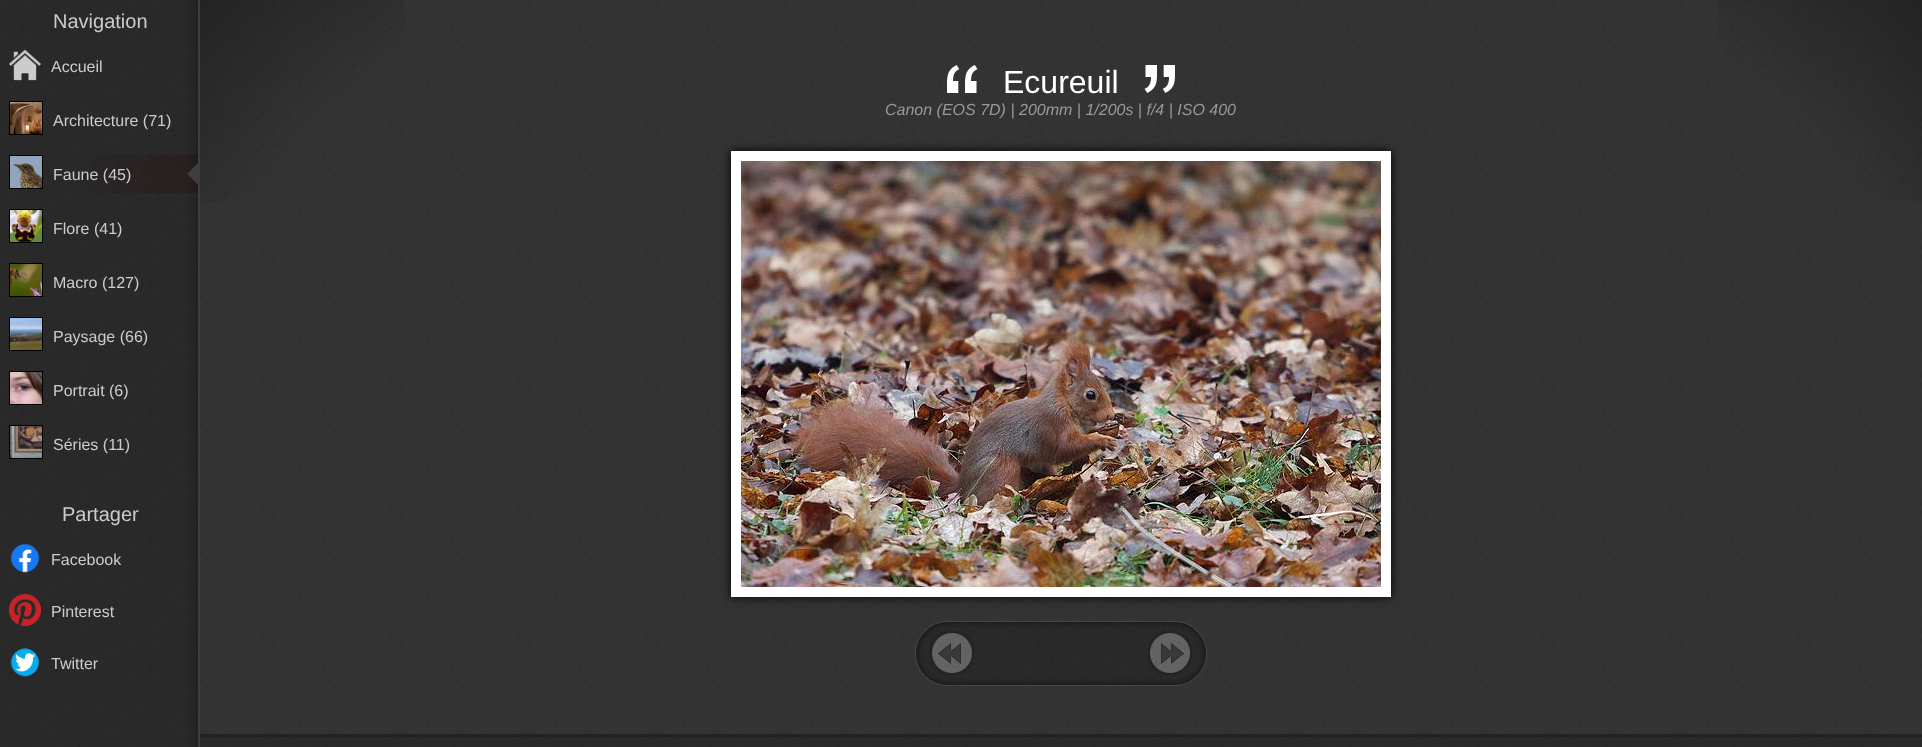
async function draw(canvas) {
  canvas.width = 1922
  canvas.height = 747
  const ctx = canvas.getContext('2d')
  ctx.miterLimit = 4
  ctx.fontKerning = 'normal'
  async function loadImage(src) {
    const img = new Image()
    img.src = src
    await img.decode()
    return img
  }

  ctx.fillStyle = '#fff'
  ctx.fillRect(0, 0, 1922, 747)
  ctx.drawImage(await loadImage('image0.png'), 200, 0, 1722, 734)
  ctx.drawImage(await loadImage('image1.png'), 0, 0, 200, 747)
  ctx.font = '20px Liberation Sans'
  ctx.fillStyle = '#ccc'
  ctx.fillText('Navigation', 53, 28)
  ctx.drawImage(await loadImage('image2.png'), 9, 49, 32, 32)
  ctx.font = '16px Liberation Sans'
  ctx.fillText('Accueil', 51, 72)
  ctx.strokeStyle = '#000'
  ctx.strokeRect(9.5, 101.5, 33, 33)
  ctx.drawImage(await loadImage('image3.png'), 10, 102, 32, 32)
  ctx.fillText('Architecture (71)', 53, 126)
  ctx.drawImage(await loadImage('image4.png'), 80, 155, 118, 38)
  ctx.strokeRect(9.5, 155.5, 33, 33)
  ctx.drawImage(await loadImage('image5.png'), 10, 156, 32, 32)
  ctx.fillText('Faune (45)', 53, 180)
  ctx.strokeRect(9.5, 209.5, 33, 33)
  ctx.drawImage(await loadImage('image6.png'), 10, 210, 32, 32)
  ctx.fillText('Flore (41)', 53, 234)
  ctx.strokeRect(9.5, 263.5, 33, 33)
  ctx.drawImage(await loadImage('image7.png'), 10, 264, 32, 32)
  ctx.fillText('Macro (127)', 53, 288)
  ctx.strokeRect(9.5, 317.5, 33, 33)
  ctx.drawImage(await loadImage('image8.png'), 10, 318, 32, 32)
  ctx.fillText('Paysage (66)', 53, 342)
  ctx.strokeRect(9.5, 371.5, 33, 33)
  ctx.drawImage(await loadImage('image9.png'), 10, 372, 32, 32)
  ctx.fillText('Portrait (6)', 53, 396)
  ctx.strokeRect(9.5, 425.5, 33, 33)
  ctx.drawImage(await loadImage('image10.png'), 10, 426, 32, 32)
  ctx.fillText('Séries (11)', 53, 450)
  ctx.font = '20px Liberation Sans'
  ctx.fillText('Partager', 62, 521)
  ctx.drawImage(await loadImage('image11.png'), 10, 543, 30, 30)
  ctx.font = '16px Liberation Sans'
  ctx.fillText('Facebook', 51, 565)
  ctx.drawImage(await loadImage('image12.png'), 9, 594, 32, 32)
  ctx.fillText('Pinterest', 51, 617)
  ctx.drawImage(await loadImage('image13.png'), 10, 648, 30, 29)
  ctx.fillText('Twitter', 51, 669)
  ctx.drawImage(await loadImage('image14.png'), 200, 0, 205, 202)
  ctx.drawImage(await loadImage('image15.png'), 947, 65, 31, 28)
  ctx.font = '32px Liberation Sans'
  ctx.fillStyle = '#fff'
  ctx.fillText('Ecureuil', 1003, 93)
  ctx.drawImage(await loadImage('image16.png'), 1144, 65, 31, 28)
  ctx.drawImage(await loadImage('image17.png'), 1718, 0, 204, 201)
  ctx.font = 'italic 16px Liberation Sans'
  ctx.fillStyle = '#999'
  ctx.fillText('Canon (EOS 7D) | 200mm | 1/200s | f/4 | ISO 400', 885, 115)
  ctx.fillStyle = '#000'
  ctx.filter = 'blur(5px)'
  ctx.beginPath()
  ctx.rect(731, 151, 660, 446)
  ctx.fill()
  ctx.filter = 'none'
  ctx.strokeStyle = '#fff'
  ctx.lineWidth = 10
  ctx.strokeRect(736, 156, 650, 436)
  ctx.drawImage(await loadImage('image18.png'), 741, 161, 640, 426)
  ctx.drawImage(await loadImage('image19.png'), 915, 621, 292, 65)
  ctx.drawImage(await loadImage('image20.png'), 930, 631, 44, 44)
  ctx.drawImage(await loadImage('image21.png'), 1148, 631, 44, 44)
  ctx.drawImage(await loadImage('image22.png'), 200, 734, 1722, 13)
  ctx.fillStyle = '#00000029'
  ctx.fillRect(200, 734, 1722, 3)
}

draw(document.querySelector('canvas'))
